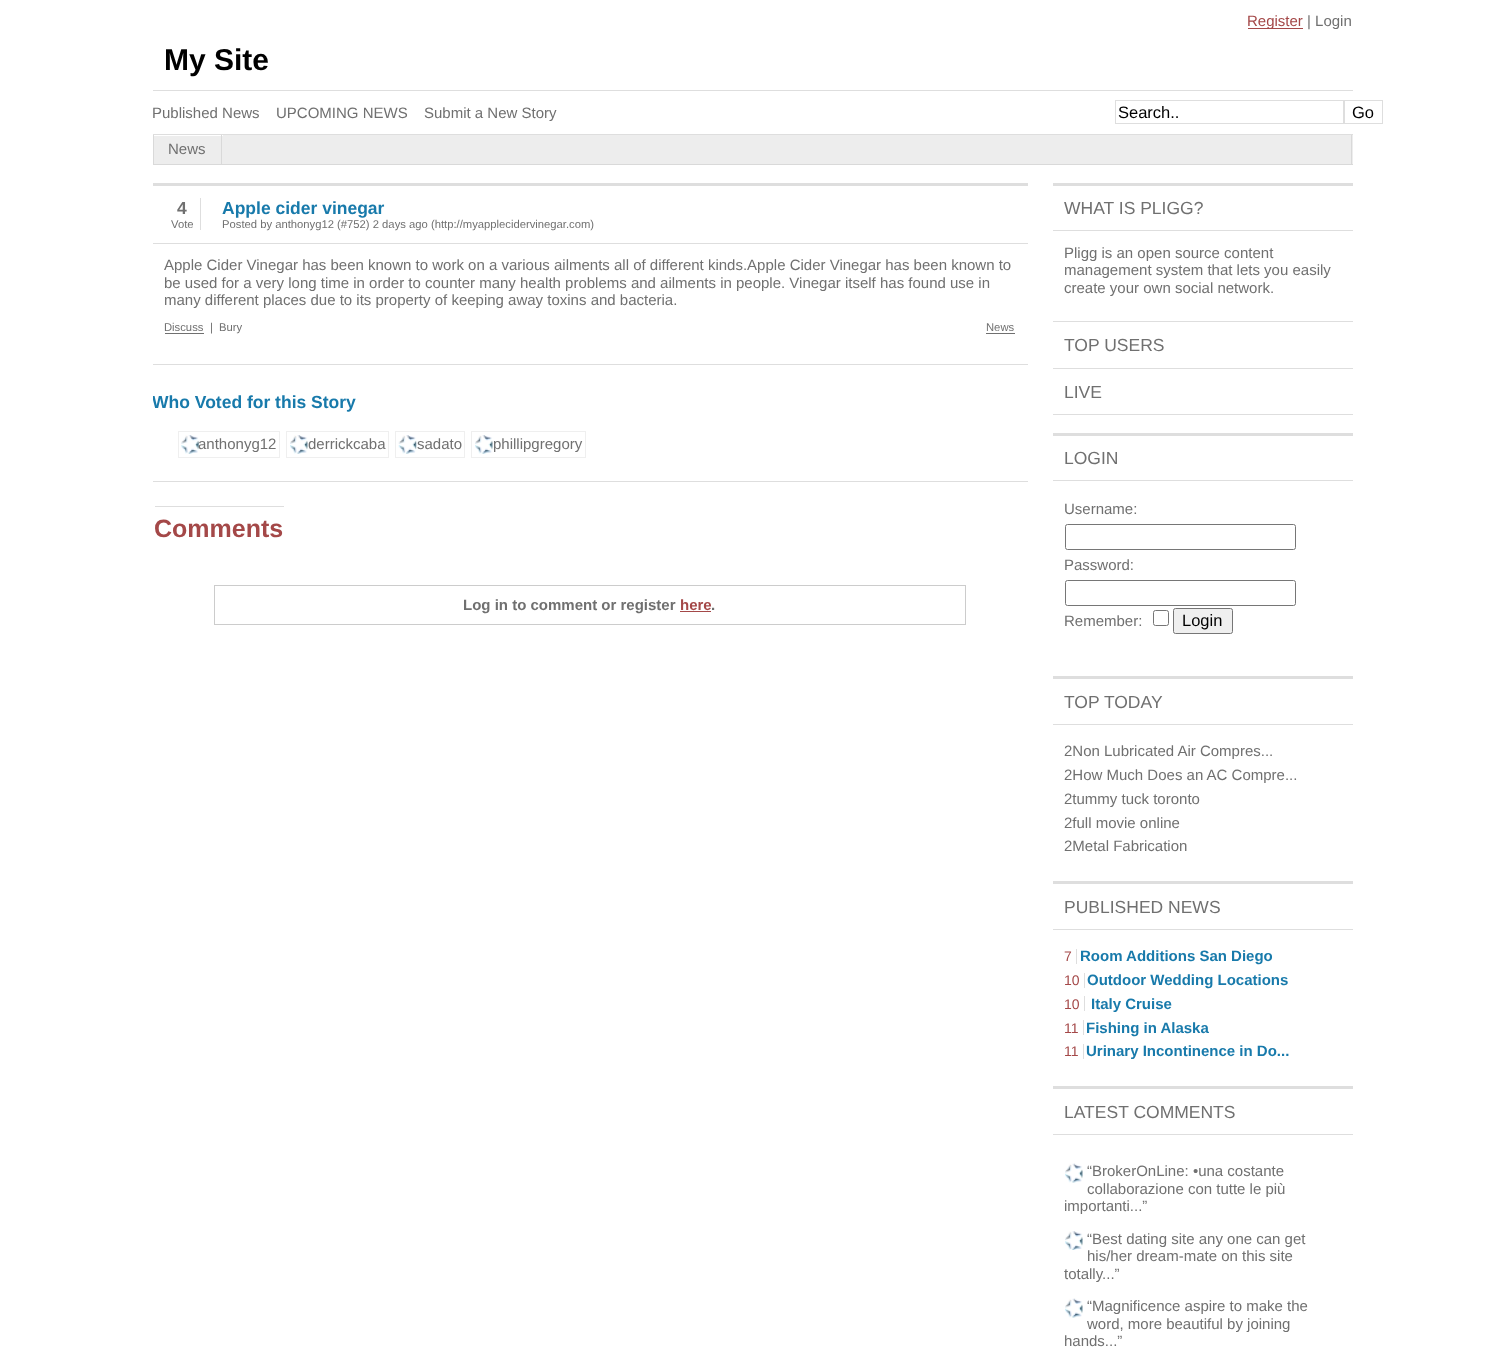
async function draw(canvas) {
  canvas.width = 1503
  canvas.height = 1357
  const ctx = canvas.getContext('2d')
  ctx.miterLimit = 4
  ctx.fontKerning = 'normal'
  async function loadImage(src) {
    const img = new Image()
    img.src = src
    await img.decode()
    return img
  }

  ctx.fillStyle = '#fff'
  ctx.fillRect(0, 0, 1503, 1357)
  ctx.fillStyle = '#a44848'
  ctx.fillRect(1248, 28, 55, 1)
  ctx.font = '15px Liberation Sans'
  ctx.fillText('Register', 1247, 26)
  ctx.fillStyle = '#707070'
  ctx.fillText('| Login', 1307, 26)
  ctx.font = 'bold 30px Liberation Sans'
  ctx.fillStyle = '#000'
  ctx.fillText('My Site', 164, 70)
  ctx.fillStyle = '#dedede'
  ctx.fillRect(153, 90, 1200, 1)
  ctx.fillRect(153, 134, 1200, 1)
  ctx.font = '15px Liberation Sans'
  ctx.fillStyle = '#707070'
  ctx.fillText('Published News', 152, 118)
  ctx.fillText('UPCOMING NEWS', 276, 118)
  ctx.fillText('Submit a New Story', 424, 118)
  ctx.strokeStyle = '#dedede'
  ctx.strokeRect(1115.5, 100.5, 228, 23)
  ctx.font = '16.5px Liberation Sans'
  ctx.fillStyle = '#000'
  ctx.fillText('Search..', 1118, 118)
  ctx.strokeRect(1344.5, 100.5, 38, 23)
  ctx.fillText('Go', 1352, 118)
  ctx.fillStyle = '#ededed'
  ctx.fillRect(154, 135, 1199, 29)
  ctx.fillStyle = '#d9d9d9'
  ctx.fillRect(1351, 135, 1, 30)
  ctx.fillRect(153, 164, 1200, 1)
  ctx.fillRect(153, 135, 1, 30)
  ctx.fillStyle = '#fff'
  ctx.fillRect(154, 135, 69, 1)
  ctx.fillStyle = '#d9d9d9'
  ctx.fillRect(221, 135, 1, 30)
  ctx.font = '15px Liberation Sans'
  ctx.fillStyle = '#707070'
  ctx.fillText('News', 168, 154)
  ctx.fillStyle = '#dedede'
  ctx.fillRect(153, 183, 875, 3)
  ctx.fillRect(153, 243, 875, 1)
  ctx.fillRect(200, 198, 1, 32)
  ctx.font = 'bold 17.5px Liberation Sans'
  ctx.fillStyle = '#707070'
  ctx.fillText('4', 177, 214)
  ctx.font = '11.25px Liberation Sans'
  ctx.fillText('Vote', 171, 228)
  ctx.font = 'bold 17.5px Liberation Sans'
  ctx.fillStyle = '#187aab'
  ctx.fillText('Apple cider vinegar', 222, 214)
  ctx.font = '11.25px Liberation Sans'
  ctx.fillStyle = '#707070'
  ctx.fillText('Posted by anthonyg12 (#752) 2 days ago (http://myapplecidervinegar.com)', 222, 228)
  ctx.font = '15px Liberation Sans'
  ctx.fillText('Apple Cider Vinegar has been known to work on a various ailments all of different kinds.Apple Cider Vinegar has been known to', 164, 270)
  ctx.fillText('be used for a very long time in order to counter many health problems and ailments in people. Vinegar itself has found use in', 164, 288)
  ctx.fillText('many different places due to its property of keeping away toxins and bacteria.', 164, 305)
  ctx.font = '11.25px Liberation Sans'
  ctx.fillText('Discuss', 164, 331)
  ctx.fillRect(165, 333, 39, 1)
  ctx.fillText('|', 210, 331)
  ctx.fillText('Bury', 219, 331)
  ctx.fillText('News', 986, 331)
  ctx.fillRect(986, 333, 29, 1)
  ctx.fillStyle = '#dedede'
  ctx.fillRect(153, 364, 875, 1)
  ctx.save()
  ctx.beginPath()
  ctx.rect(153, 165, 875, 625)
  ctx.clip()
  ctx.font = 'bold 17.5px Liberation Sans'
  ctx.fillStyle = '#187aab'
  ctx.fillText('Who Voted for this Story', 152, 408)
  ctx.restore()
  ctx.strokeStyle = '#efefef'
  ctx.strokeRect(178.5, 431.5, 101, 26)
  ctx.drawImage(await loadImage('image0.png'), 181, 435, 18, 19)
  ctx.font = '15px Liberation Sans'
  ctx.fillStyle = '#707070'
  ctx.fillText('anthonyg12', 198, 449)
  ctx.strokeRect(286.5, 431.5, 102, 26)
  ctx.drawImage(await loadImage('image1.png'), 290, 435, 18, 19)
  ctx.fillText('derrickcaba', 308, 449)
  ctx.strokeRect(395.5, 431.5, 69, 26)
  ctx.drawImage(await loadImage('image2.png'), 398, 435, 19, 19)
  ctx.fillText('sadato', 417, 449)
  ctx.strokeRect(471.5, 431.5, 114, 26)
  ctx.drawImage(await loadImage('image1.png'), 475, 435, 18, 19)
  ctx.fillText('phillipgregory', 493, 449)
  ctx.fillStyle = '#dedede'
  ctx.fillRect(153, 481, 875, 1)
  ctx.font = 'bold 25px Liberation Sans'
  ctx.fillStyle = '#a44848'
  ctx.fillText('Comments', 154, 537)
  ctx.fillStyle = '#dedede'
  ctx.fillRect(155, 506, 129, 1)
  ctx.strokeStyle = '#ccc'
  ctx.strokeRect(214.5, 585.5, 751, 39)
  ctx.font = 'bold 15px Liberation Sans'
  ctx.fillStyle = '#707070'
  ctx.fillText('Log in to comment or register', 463, 610)
  ctx.fillStyle = '#a44848'
  ctx.fillText('here', 680, 610)
  ctx.fillRect(680, 611, 31, 1)
  ctx.fillStyle = '#707070'
  ctx.fillText('.', 711, 610)
  ctx.fillStyle = '#dedede'
  ctx.fillRect(1053, 183, 300, 3)
  ctx.fillRect(1053, 230, 300, 1)
  ctx.font = '17.5px Liberation Sans'
  ctx.fillStyle = '#707070'
  ctx.fillText('WHAT IS PLIGG?', 1064, 214)
  ctx.fillStyle = '#dedede'
  ctx.fillRect(1053, 321, 300, 1)
  ctx.font = '15px Liberation Sans'
  ctx.fillStyle = '#707070'
  ctx.fillText('Pligg is an open source content', 1064, 258)
  ctx.fillText('management system that lets you easily', 1064, 275)
  ctx.fillText('create your own social network.', 1064, 293)
  ctx.fillStyle = '#dedede'
  ctx.fillRect(1053, 368, 300, 1)
  ctx.font = '17.5px Liberation Sans'
  ctx.fillStyle = '#707070'
  ctx.fillText('TOP USERS', 1064, 351)
  ctx.fillStyle = '#dedede'
  ctx.fillRect(1053, 414, 300, 1)
  ctx.fillStyle = '#707070'
  ctx.fillText('LIVE', 1064, 398)
  ctx.fillStyle = '#dedede'
  ctx.fillRect(1053, 433, 300, 3)
  ctx.fillRect(1053, 480, 300, 1)
  ctx.fillStyle = '#707070'
  ctx.fillText('LOGIN', 1064, 464)
  ctx.font = '15px Liberation Sans'
  ctx.fillText('Username:', 1064, 514)
  ctx.beginPath()
  ctx.roundRect(1065.5, 524.5, 230, 25, 2)
  ctx.strokeStyle = '#767676'
  ctx.stroke()
  ctx.fillText('Password:', 1064, 570)
  ctx.beginPath()
  ctx.roundRect(1065.5, 580.5, 230, 25, 2)
  ctx.stroke()
  ctx.fillText('Remember:', 1064, 626)
  ctx.beginPath()
  ctx.roundRect(1153.5, 610.5, 15, 15, 2)
  ctx.stroke()
  ctx.fillStyle = '#efefef'
  ctx.beginPath()
  ctx.roundRect(1173.5, 608.5, 59, 25, 2)
  ctx.fill()
  ctx.stroke()
  ctx.font = '16.5px Liberation Sans'
  ctx.fillStyle = '#000'
  ctx.fillText('Login', 1182, 626)
  ctx.fillStyle = '#dedede'
  ctx.fillRect(1053, 676, 300, 3)
  ctx.fillRect(1053, 724, 300, 1)
  ctx.font = '17.5px Liberation Sans'
  ctx.fillStyle = '#707070'
  ctx.fillText('TOP TODAY', 1064, 708)
  ctx.font = '15px Liberation Sans'
  ctx.fillText('2Non Lubricated Air Compres...', 1064, 756)
  ctx.fillText('2How Much Does an AC Compre...', 1064, 780)
  ctx.fillText('2tummy tuck toronto', 1064, 804)
  ctx.fillText('2full movie online', 1064, 828)
  ctx.fillText('2Metal Fabrication', 1064, 851)
  ctx.fillStyle = '#dedede'
  ctx.fillRect(1053, 881, 300, 3)
  ctx.fillRect(1053, 929, 300, 1)
  ctx.font = '17.5px Liberation Sans'
  ctx.fillStyle = '#707070'
  ctx.fillText('PUBLISHED NEWS', 1064, 913)
  ctx.font = '14px Liberation Sans'
  ctx.fillStyle = '#a44848'
  ctx.fillText('7', 1064, 961)
  ctx.fillStyle = '#dedede'
  ctx.fillRect(1076, 949, 1, 15)
  ctx.font = 'bold 15px Liberation Sans'
  ctx.fillStyle = '#187aab'
  ctx.fillText('Room Additions San Diego', 1080, 961)
  ctx.font = '14px Liberation Sans'
  ctx.fillStyle = '#a44848'
  ctx.fillText('10', 1064, 985)
  ctx.fillStyle = '#dedede'
  ctx.fillRect(1084, 973, 1, 15)
  ctx.font = 'bold 15px Liberation Sans'
  ctx.fillStyle = '#187aab'
  ctx.fillText('Outdoor Wedding Locations', 1087, 985)
  ctx.font = '14px Liberation Sans'
  ctx.fillStyle = '#a44848'
  ctx.fillText('10', 1064, 1009)
  ctx.fillStyle = '#dedede'
  ctx.fillRect(1084, 996, 1, 15)
  ctx.font = 'bold 15px Liberation Sans'
  ctx.fillStyle = '#187aab'
  ctx.fillText('Italy Cruise', 1091, 1009)
  ctx.font = '14px Liberation Sans'
  ctx.fillStyle = '#a44848'
  ctx.fillText('11', 1064, 1033)
  ctx.fillStyle = '#dedede'
  ctx.fillRect(1083, 1020, 1, 15)
  ctx.font = 'bold 15px Liberation Sans'
  ctx.fillStyle = '#187aab'
  ctx.fillText('Fishing in Alaska', 1086, 1033)
  ctx.font = '14px Liberation Sans'
  ctx.fillStyle = '#a44848'
  ctx.fillText('11', 1064, 1056)
  ctx.fillStyle = '#dedede'
  ctx.fillRect(1083, 1044, 1, 15)
  ctx.font = 'bold 15px Liberation Sans'
  ctx.fillStyle = '#187aab'
  ctx.fillText('Urinary Incontinence in Do...', 1086, 1056)
  ctx.fillStyle = '#dedede'
  ctx.fillRect(1053, 1086, 300, 3)
  ctx.fillRect(1053, 1134, 300, 1)
  ctx.font = '17.5px Liberation Sans'
  ctx.fillStyle = '#707070'
  ctx.fillText('LATEST COMMENTS', 1064, 1118)
  ctx.drawImage(await loadImage('image3.png'), 1065, 1163, 18, 20)
  ctx.font = '15px Liberation Sans'
  ctx.fillText('“BrokerOnLine: •una costante', 1087, 1176)
  ctx.fillText('collaborazione con tutte le più', 1087, 1194)
  ctx.fillText('importanti...”', 1064, 1211)
  ctx.drawImage(await loadImage('image4.png'), 1065, 1231, 18, 19)
  ctx.fillText('“Best dating site any one can get', 1087, 1244)
  ctx.fillText('his/her dream-mate on this site', 1087, 1261)
  ctx.fillText('totally...”', 1064, 1279)
  ctx.drawImage(await loadImage('image5.png'), 1065, 1298, 18, 20)
  ctx.fillText('“Magnificence aspire to make the', 1087, 1311)
  ctx.fillText('word, more beautiful by joining', 1087, 1329)
  ctx.fillText('hands...”', 1064, 1346)
}

draw(document.querySelector('canvas'))
